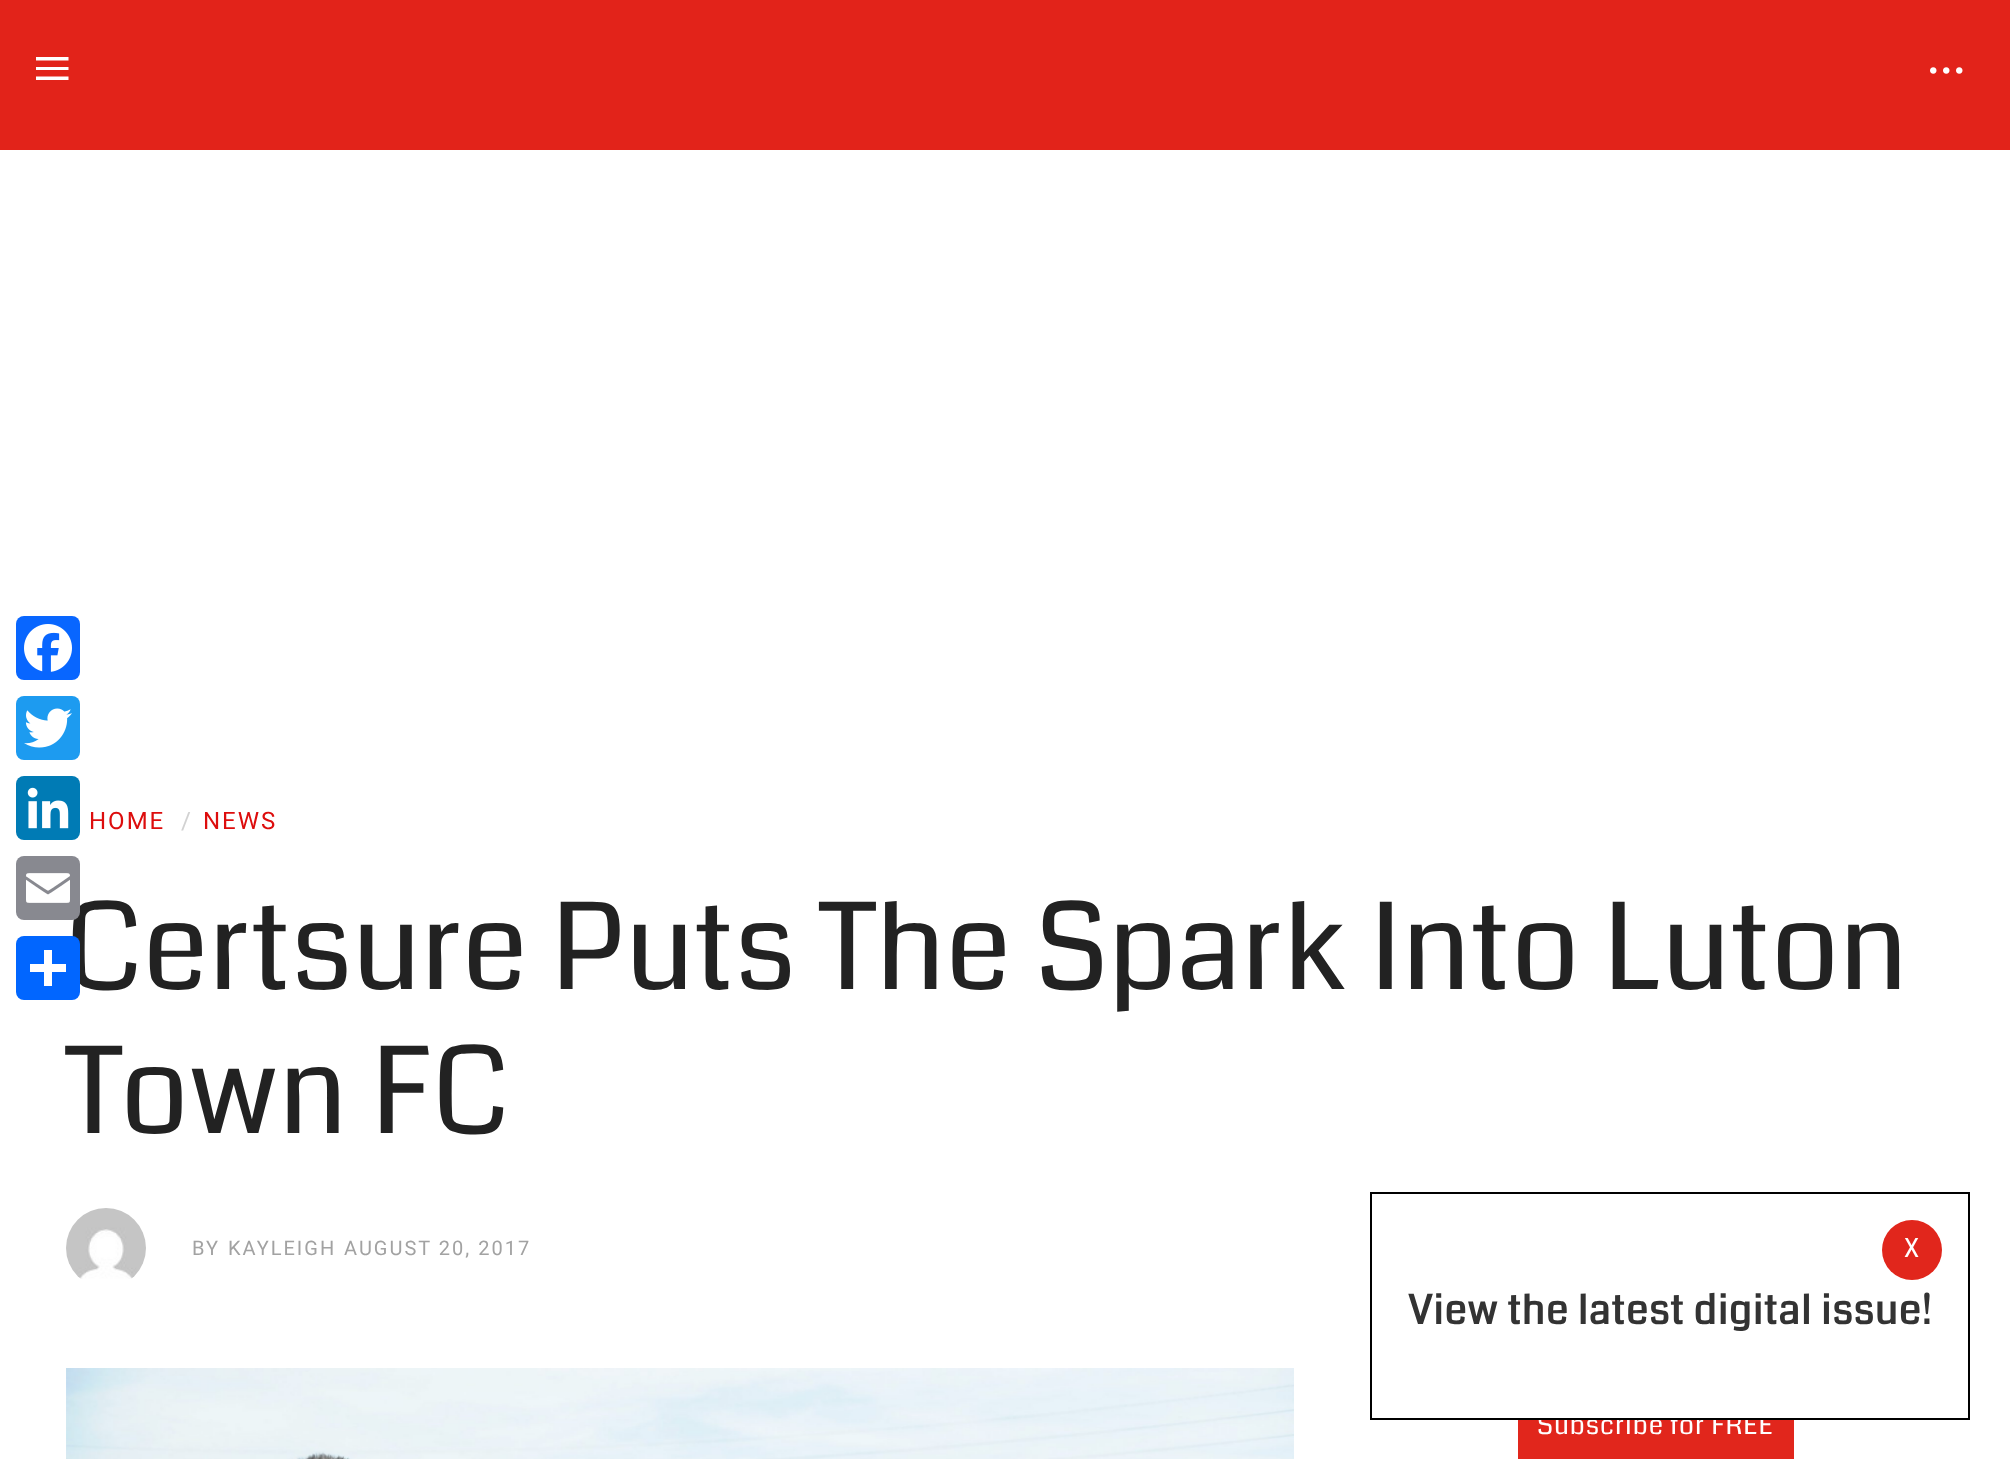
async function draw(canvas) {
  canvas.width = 2010
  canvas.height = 1459
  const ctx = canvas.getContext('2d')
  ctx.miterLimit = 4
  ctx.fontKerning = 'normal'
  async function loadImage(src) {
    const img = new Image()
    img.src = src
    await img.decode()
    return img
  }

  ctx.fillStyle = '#fff'
  ctx.fillRect(0, 0, 2010, 1459)
  ctx.fillStyle = '#0866ff'
  ctx.beginPath()
  ctx.roundRect(16, 616, 64, 64, 8)
  ctx.fill()
  ctx.drawImage(await loadImage('image0.png'), 24, 624, 48, 48)
  ctx.fillStyle = '#1d9bf0'
  ctx.beginPath()
  ctx.roundRect(16, 696, 64, 64, 8)
  ctx.fill()
  ctx.drawImage(await loadImage('image1.png'), 24, 708, 48, 40)
  ctx.fillStyle = '#007bb5'
  ctx.beginPath()
  ctx.roundRect(16, 776, 64, 64, 8)
  ctx.fill()
  ctx.drawImage(await loadImage('image2.png'), 27, 787, 42, 42)
  ctx.font = '120px Coda'
  ctx.fillStyle = '#222'
  ctx.fillText('Certsure Puts The Spark Into Luton', 65, 989)
  ctx.fillStyle = '#888990'
  ctx.beginPath()
  ctx.roundRect(16, 856, 64, 64, 8)
  ctx.fill()
  ctx.drawImage(await loadImage('image3.png'), 26, 873, 44, 30)
  ctx.fillStyle = '#0166ff'
  ctx.beginPath()
  ctx.roundRect(16, 936, 64, 64, 8)
  ctx.fill()
  ctx.fillStyle = '#fff'
  ctx.fillRect(44, 950, 8, 36)
  ctx.fillRect(30, 964, 36, 8)
  ctx.fillStyle = '#e2231a'
  ctx.fillRect(0, 0, 2010, 150)
  ctx.fillStyle = '#fff'
  ctx.beginPath()
  ctx.moveTo(36, 70)
  ctx.lineTo(36, 67)
  ctx.lineTo(68.5, 67)
  ctx.lineTo(68.5, 70)
  ctx.closePath()
  ctx.moveTo(36, 60.5)
  ctx.lineTo(36, 57)
  ctx.lineTo(68.5, 57)
  ctx.lineTo(68.5, 60.5)
  ctx.closePath()
  ctx.moveTo(36, 80)
  ctx.lineTo(36, 76.5)
  ctx.lineTo(68.5, 76.5)
  ctx.lineTo(68.5, 80)
  ctx.closePath()
  ctx.fill()
  ctx.drawImage(await loadImage('image4.png'), 1930, 67, 33, 7)
  ctx.letterSpacing = '2px'
  ctx.font = '24px Roboto'
  ctx.fillStyle = '#dd0d0d'
  ctx.fillText('HOME', 89, 829)
  ctx.fillStyle = '#d2d2d2'
  ctx.fillText('/', 181, 829)
  ctx.fillStyle = '#dd0d0d'
  ctx.fillText('NEWS', 203, 829)
  ctx.letterSpacing = '0px'
  ctx.font = '120px Coda'
  ctx.fillStyle = '#222'
  ctx.fillText('Town FC', 65, 1133)
  ctx.drawImage(await loadImage('image5.png'), 66, 1208, 80, 71)
  ctx.letterSpacing = '2px'
  ctx.font = '20px Roboto'
  ctx.fillStyle = '#a2a2a2'
  ctx.fillText('BY', 192, 1255)
  ctx.fillText('KAYLEIGH', 228, 1255)
  ctx.fillText('AUGUST 20, 2017', 344, 1255)
  ctx.drawImage(await loadImage('image6.png'), 66, 1368, 1228, 91)
  ctx.fillStyle = '#e1261c'
  ctx.fillRect(1518, 1420, 276, 39)
  ctx.letterSpacing = '1px'
  ctx.font = '26px Coda'
  ctx.fillStyle = '#fff'
  ctx.fillText('Subscribe for FREE', 1537, 1434)
  ctx.strokeStyle = '#000'
  ctx.lineWidth = 2
  ctx.strokeRect(1371, 1193, 598, 226)
  ctx.fillStyle = '#e1261c'
  ctx.beginPath()
  ctx.arc(1912, 1250, 30, 0, 2 * Math.PI)
  ctx.fill()
  ctx.letterSpacing = '0px'
  ctx.fillStyle = '#fff'
  ctx.fillText('X', 1904, 1257)
  ctx.letterSpacing = '1px'
  ctx.font = 'bold 40px Coda'
  ctx.fillStyle = '#333'
  ctx.fillText('View the latest digital issue!', 1408, 1324)
}

draw(document.querySelector('canvas'))
